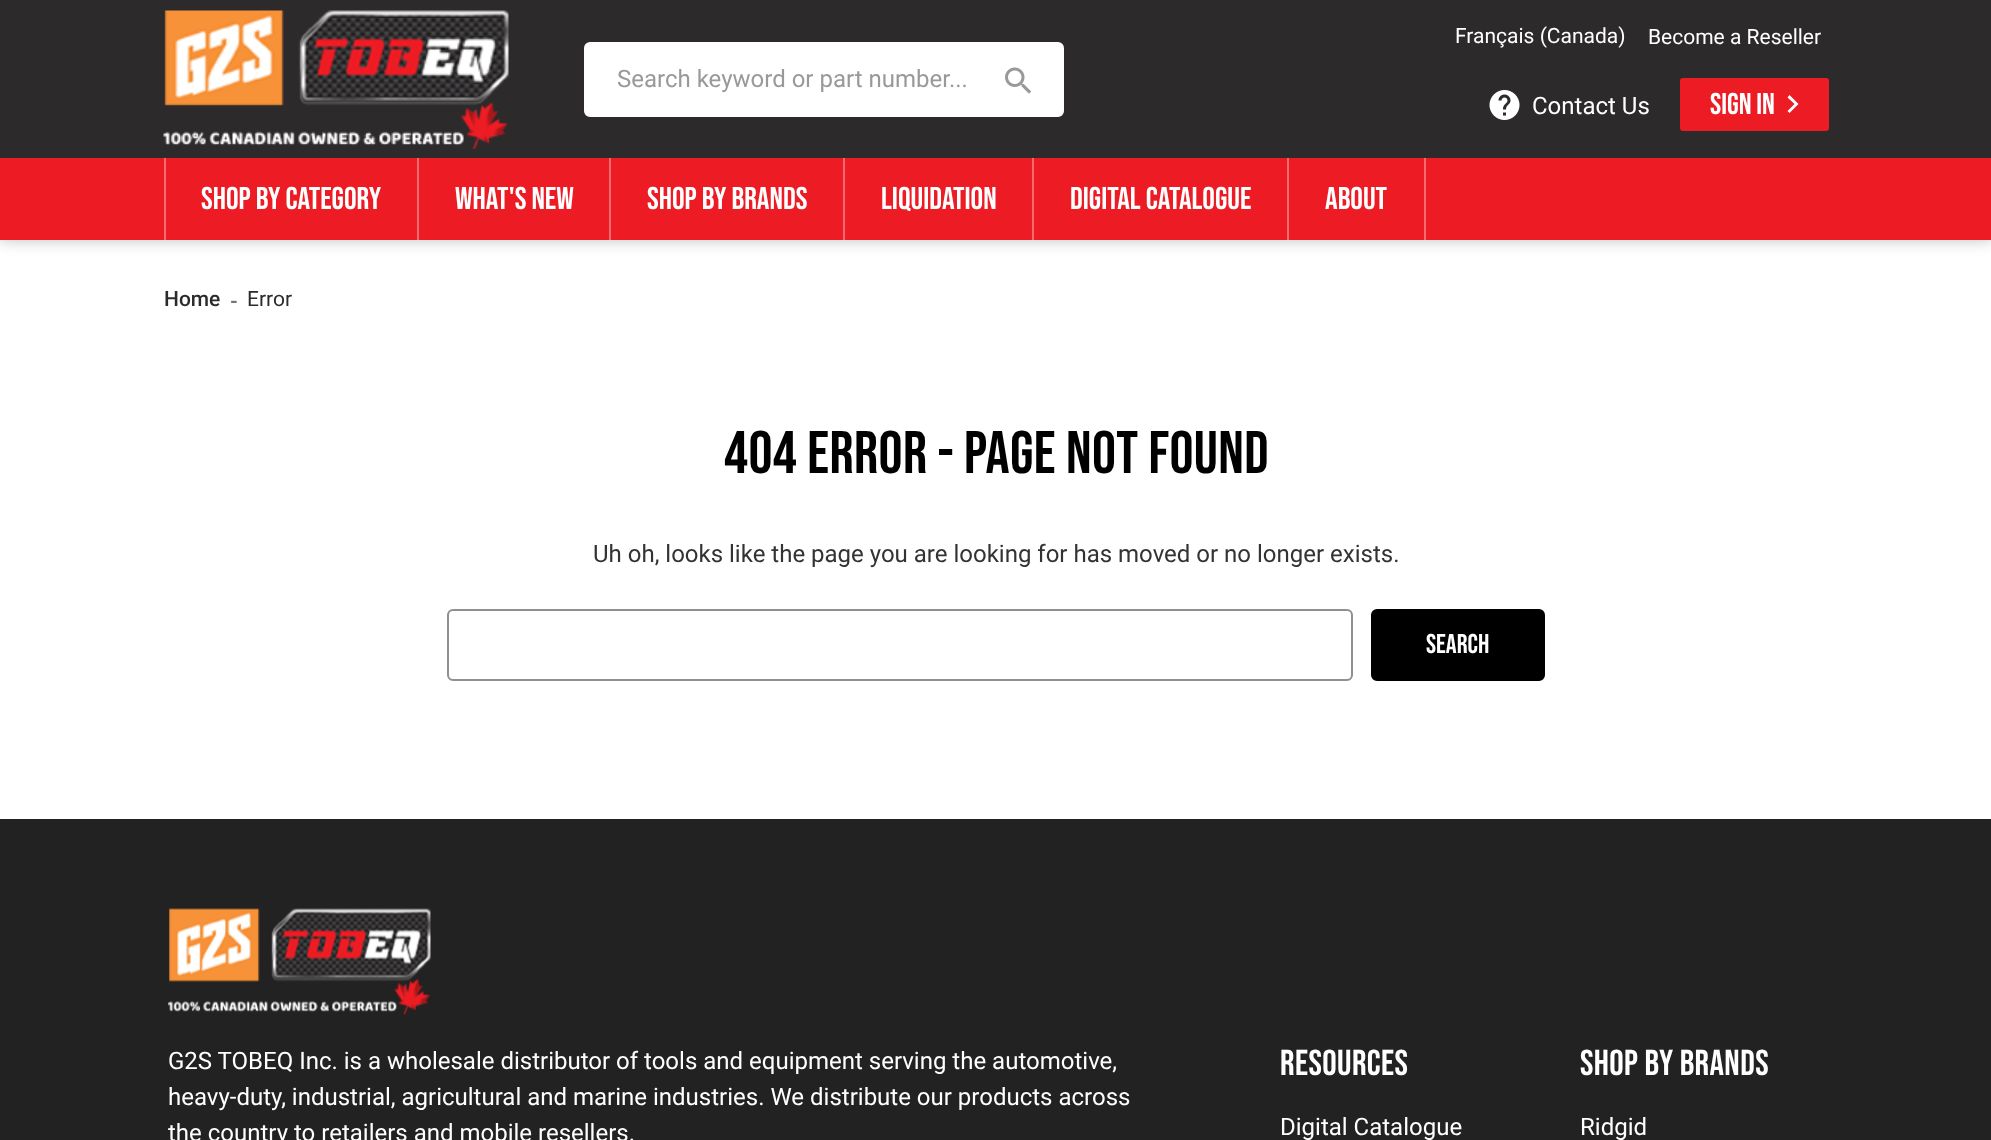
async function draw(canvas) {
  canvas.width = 1991
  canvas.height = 1140
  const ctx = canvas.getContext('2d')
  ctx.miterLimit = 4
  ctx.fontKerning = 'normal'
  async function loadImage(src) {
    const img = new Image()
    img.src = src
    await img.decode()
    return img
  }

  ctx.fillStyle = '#fff'
  ctx.fillRect(0, 0, 1991, 1140)
  ctx.fillStyle = '#00000040'
  ctx.filter = 'blur(7.5px)'
  ctx.beginPath()
  ctx.rect(0, 0, 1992, 240)
  ctx.fill()
  ctx.filter = 'none'
  ctx.fillStyle = '#2d2a2b'
  ctx.fillRect(0, 0, 1991, 158)
  ctx.drawImage(await loadImage('image0.png'), 163, 10, 346, 139)
  ctx.fillStyle = '#fff'
  ctx.beginPath()
  ctx.roundRect(585.5, 43.5, 477, 72, 4.5)
  ctx.fill()
  ctx.strokeStyle = '#fff'
  ctx.lineWidth = 3
  ctx.stroke()
  ctx.font = '24px Roboto'
  ctx.fillStyle = '#999'
  ctx.fillText('Search keyword or part number...', 617, 87)
  ctx.drawImage(await loadImage('image1.png'), 1005, 67, 27, 27)
  ctx.font = '21px Roboto'
  ctx.fillStyle = '#fff'
  ctx.fillText('Français (Canada)', 1455, 43)
  ctx.fillText('Become a Reseller', 1648, 44)
  ctx.drawImage(await loadImage('image2.png'), 1489, 90, 31, 30)
  ctx.font = '24px Roboto'
  ctx.fillText('Contact Us', 1532, 114)
  ctx.fillStyle = '#ec1b24'
  ctx.beginPath()
  ctx.roundRect(1680, 78, 149, 53, 3)
  ctx.fill()
  ctx.font = '30px Bebas Neue'
  ctx.fillStyle = '#fff'
  ctx.fillText('SIGN IN', 1710, 114)
  ctx.beginPath()
  ctx.moveTo(1789.5, 95)
  ctx.lineTo(1787.5, 97.5)
  ctx.lineTo(1794.5, 104)
  ctx.lineTo(1787.5, 111)
  ctx.lineTo(1789.5, 113)
  ctx.lineTo(1798.5, 104)
  ctx.closePath()
  ctx.fill()
  ctx.fillStyle = '#ec1b24'
  ctx.fillRect(0, 158, 1991, 82)
  ctx.fillStyle = '#f36b71'
  ctx.fillRect(164, 158, 2, 82)
  ctx.font = '31.5px Bebas Neue'
  ctx.fillStyle = '#fff'
  ctx.fillText('SHOP BY CATEGORY', 201, 209)
  ctx.fillStyle = '#f36b71'
  ctx.fillRect(417, 158, 2, 82)
  ctx.fillStyle = '#fff'
  ctx.fillText('WHAT\'S NEW', 455, 209)
  ctx.fillStyle = '#f36b71'
  ctx.fillRect(609, 158, 2, 82)
  ctx.fillStyle = '#fff'
  ctx.fillText('SHOP BY BRANDS', 647, 209)
  ctx.fillStyle = '#f36b71'
  ctx.fillRect(843, 158, 2, 82)
  ctx.fillStyle = '#fff'
  ctx.fillText('LIQUIDATION', 881, 209)
  ctx.fillStyle = '#f36b71'
  ctx.fillRect(1032, 158, 2, 82)
  ctx.fillStyle = '#fff'
  ctx.fillText('DIGITAL CATALOGUE', 1070, 209)
  ctx.fillStyle = '#f36b71'
  ctx.fillRect(1424, 158, 2, 82)
  ctx.fillRect(1287, 158, 2, 82)
  ctx.fillStyle = '#fff'
  ctx.fillText('ABOUT', 1325, 209)
  ctx.font = '500 21px Roboto'
  ctx.fillStyle = '#2d2a2b'
  ctx.fillText('Home', 164, 306)
  ctx.font = 'bold 20px Roboto'
  ctx.fillStyle = '#757575'
  ctx.fillText('-', 230, 308)
  ctx.font = '21px Roboto'
  ctx.fillStyle = '#2d2a2b'
  ctx.fillText('Error', 247, 306)
  ctx.letterSpacing = '0.4px'
  ctx.font = '60px Bebas Neue'
  ctx.fillStyle = '#000'
  ctx.fillText('404 Error - Page not found', 724, 473)
  ctx.letterSpacing = '0px'
  ctx.font = '24px Roboto'
  ctx.fillStyle = '#333'
  ctx.fillText('Uh oh, looks like the page you are looking for has moved or no longer exists.', 593, 562)
  ctx.beginPath()
  ctx.roundRect(448, 610, 904, 70, 5)
  ctx.strokeStyle = '#8f8f8f'
  ctx.lineWidth = 2
  ctx.stroke()
  ctx.fillStyle = '#000'
  ctx.beginPath()
  ctx.roundRect(1372, 610, 172, 70, 5)
  ctx.fill()
  ctx.strokeStyle = '#000'
  ctx.stroke()
  ctx.font = '27px Bebas Neue'
  ctx.fillStyle = '#fff'
  ctx.fillText('Search', 1426, 653)
  ctx.fillStyle = '#222'
  ctx.fillRect(0, 819, 1991, 321)
  ctx.drawImage(await loadImage('image3.png'), 168, 908, 263, 107)
  ctx.font = '24px Roboto'
  ctx.fillStyle = '#fff'
  ctx.fillText('G2S TOBEQ Inc. is a wholesale distributor of tools and equipment serving the automotive,', 168, 1069)
  ctx.fillText('heavy-duty, industrial, agricultural and marine industries. We distribute our products across', 168, 1105)
  ctx.fillText('the country to retailers and mobile resellers.', 168, 1141)
  ctx.letterSpacing = '0.4px'
  ctx.font = '36px Bebas Neue'
  ctx.fillText('Resources', 1280, 1075)
  ctx.letterSpacing = '0px'
  ctx.font = '24px Roboto'
  ctx.fillText('Digital Catalogue', 1280, 1135)
  ctx.letterSpacing = '0.4px'
  ctx.font = '36px Bebas Neue'
  ctx.fillText('Shop By Brands', 1580, 1075)
  ctx.letterSpacing = '0px'
  ctx.font = '24px Roboto'
  ctx.fillText('Ridgid', 1580, 1135)
}

draw(document.querySelector('canvas'))
